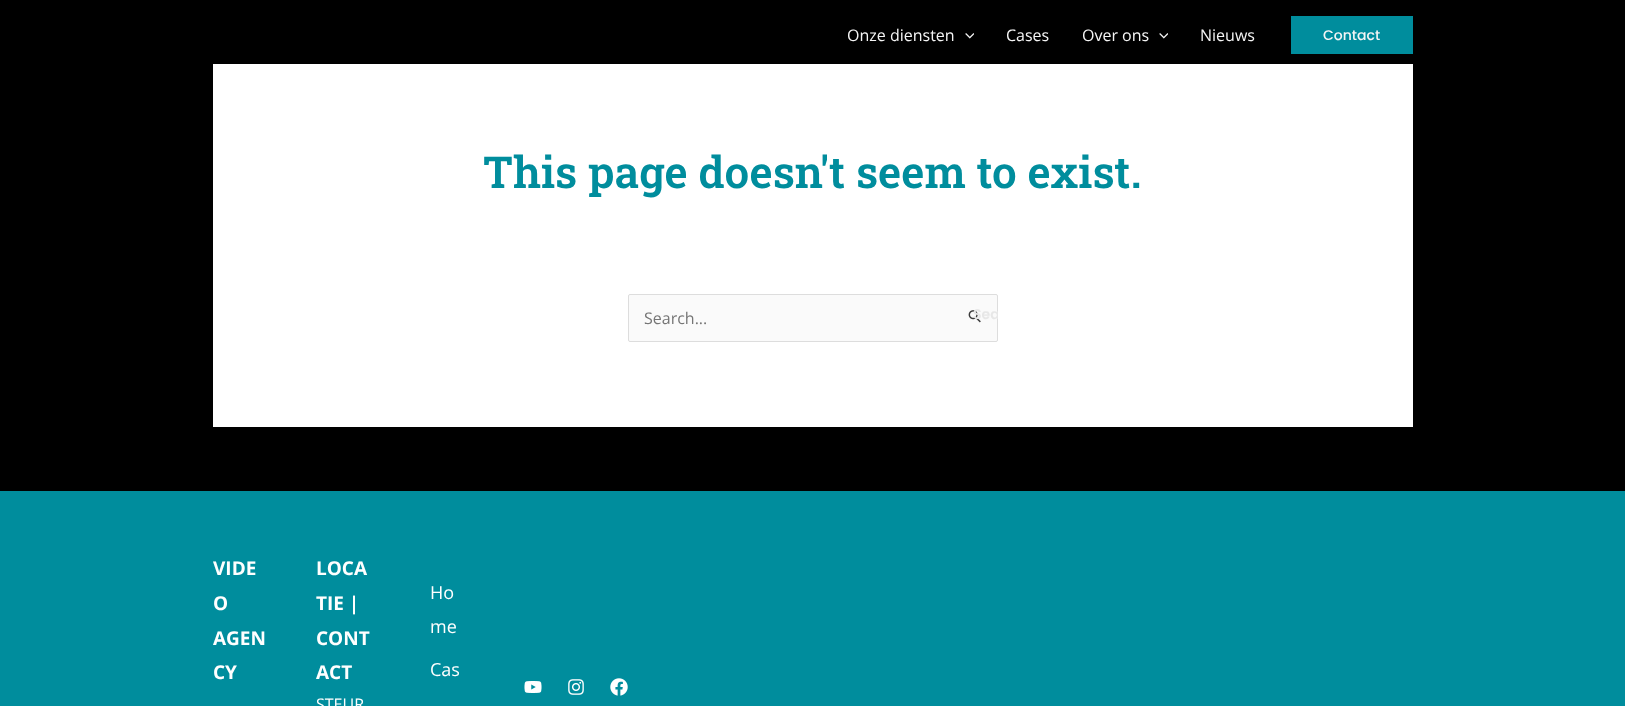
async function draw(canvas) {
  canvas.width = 1625
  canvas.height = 706
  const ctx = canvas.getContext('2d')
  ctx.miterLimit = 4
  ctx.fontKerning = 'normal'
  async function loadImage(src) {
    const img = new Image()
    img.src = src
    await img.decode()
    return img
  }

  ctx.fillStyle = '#000'
  ctx.fillRect(0, 0, 1625, 706)
  ctx.font = '16px Open Sans'
  ctx.fillStyle = '#f5f5f5'
  ctx.fillText('Onze diensten', 847, 41)
  ctx.drawImage(await loadImage('image0.png'), 965, 33, 9, 6)
  ctx.fillText('Cases', 1006, 41)
  ctx.fillText('Over ons', 1082, 41)
  ctx.drawImage(await loadImage('image0.png'), 1159, 33, 9, 6)
  ctx.fillText('Nieuws', 1200, 41)
  ctx.fillStyle = '#008d9d'
  ctx.fillRect(1291, 16, 122, 38)
  ctx.font = '500 14px Poppins'
  ctx.fillStyle = '#f5f5f5'
  ctx.fillText('Contact', 1323, 40)
  ctx.fillStyle = '#fff'
  ctx.fillRect(213, 64, 1200, 363)
  ctx.font = '600 44px Roboto Slab'
  ctx.fillStyle = '#008d9d'
  ctx.fillText('This page doesn\'t seem to exist.', 483, 188)
  ctx.fillStyle = '#fafafa'
  ctx.beginPath()
  ctx.roundRect(628.5, 294.5, 369, 47, 1.5)
  ctx.fill()
  ctx.strokeStyle = '#ddd'
  ctx.stroke()
  ctx.font = '16px Open Sans'
  ctx.fillStyle = '#757575'
  ctx.fillText('Search...', 644, 324)
  ctx.drawImage(await loadImage('image1.png'), 968, 310, 13, 13)
  ctx.save()
  ctx.beginPath()
  ctx.roundRect(953, 294, 45, 40, 2)
  ctx.clip()
  ctx.font = '600 14px Poppins'
  ctx.fillStyle = '#e7e7e7'
  ctx.fillText('Sea', 973, 319)
  ctx.restore()
  ctx.fillStyle = '#008d9d'
  ctx.fillRect(0, 491, 1625, 215)
  ctx.font = 'bold 19px Open Sans'
  ctx.fillStyle = '#fff'
  ctx.fillText('VIDE', 213, 575)
  ctx.fillText('O', 213, 610)
  ctx.fillText('AGEN', 213, 645)
  ctx.fillText('CY', 213, 679)
  ctx.fillText('LOCA', 316, 575)
  ctx.fillText('TIE |', 316, 610)
  ctx.fillText('CONT', 316, 645)
  ctx.fillText('ACT', 316, 679)
  ctx.font = '16px Open Sans'
  ctx.fillText('STEUR', 316, 710)
  ctx.font = '18px Open Sans'
  ctx.fillText('Ho', 430, 599)
  ctx.fillText('me', 430, 633)
  ctx.fillText('Cas', 430, 676)
  ctx.drawImage(await loadImage('image2.png'), 524, 681, 18, 12)
  ctx.drawImage(await loadImage('image3.png'), 568, 679, 16, 16)
  ctx.drawImage(await loadImage('image4.png'), 610, 678, 18, 18)
}

draw(document.querySelector('canvas'))
